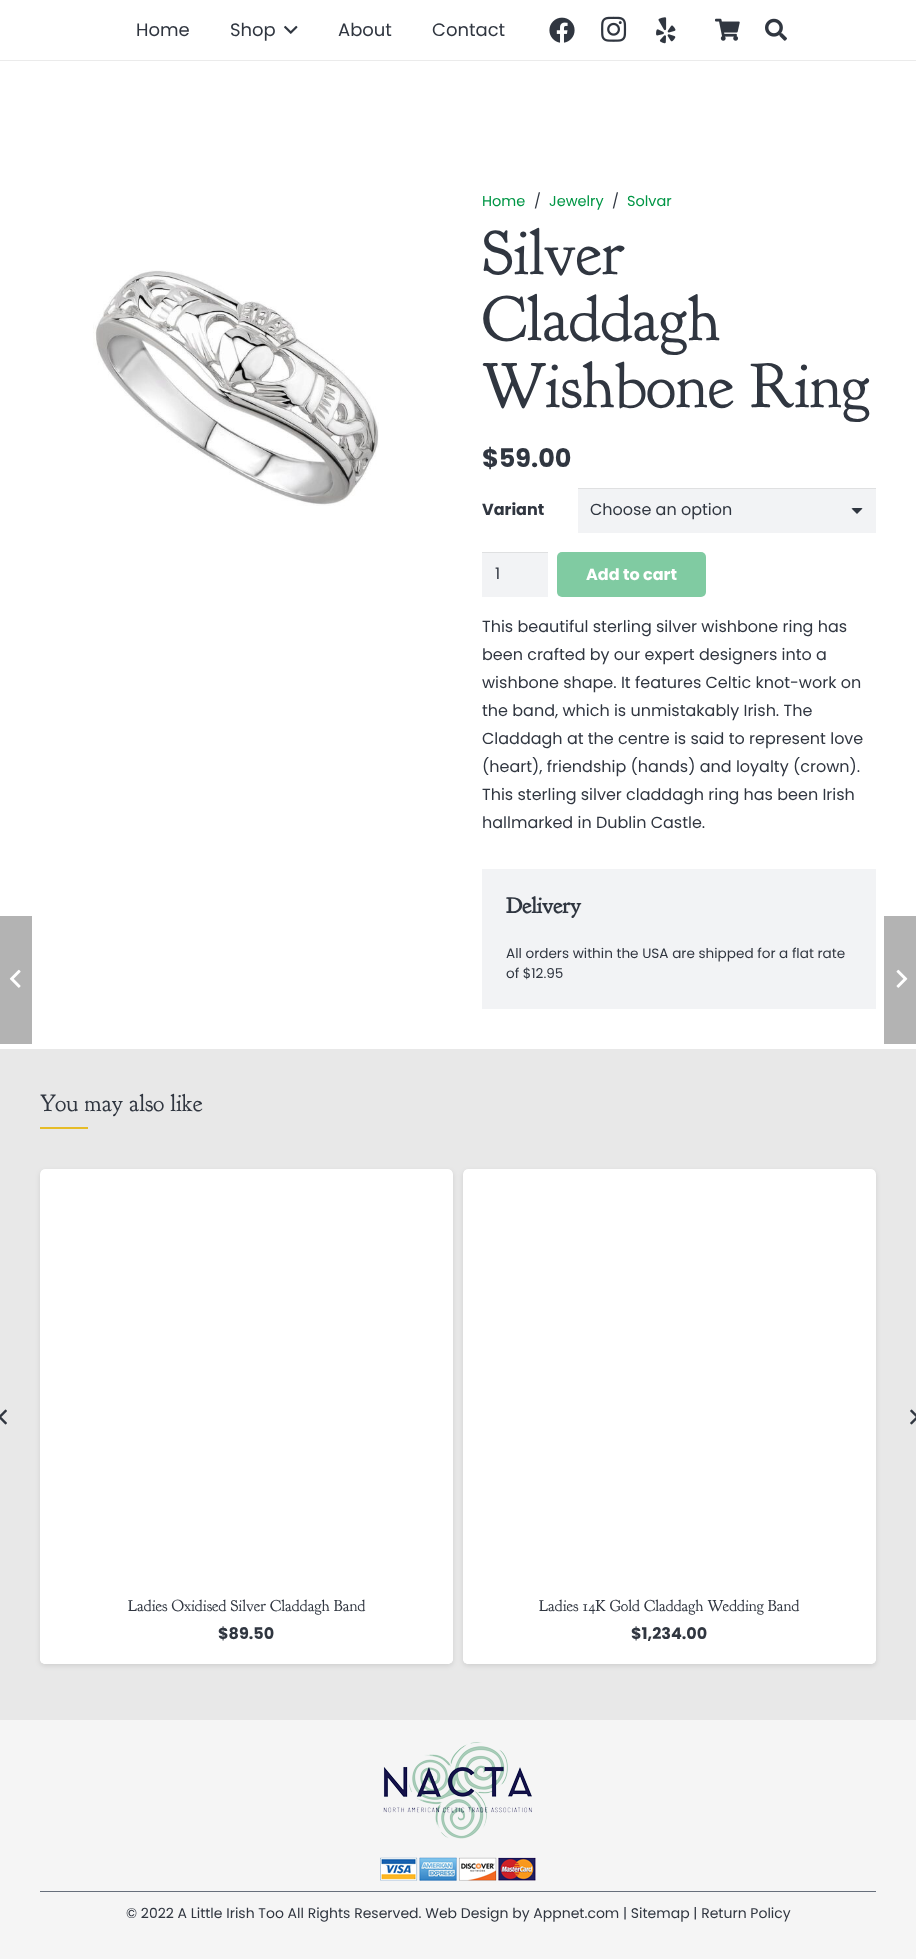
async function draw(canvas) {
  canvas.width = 916
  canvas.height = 1959
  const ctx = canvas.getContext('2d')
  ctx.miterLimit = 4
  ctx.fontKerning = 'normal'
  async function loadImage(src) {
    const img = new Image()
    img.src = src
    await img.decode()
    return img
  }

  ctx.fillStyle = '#f5f5f5'
  ctx.fillRect(0, 0, 916, 1959)
  ctx.fillStyle = '#fff'
  ctx.fillRect(0, 0, 916, 1049)
  ctx.fillStyle = '#ebebeb'
  ctx.fillRect(0, 60, 916, 1)
  ctx.font = '18px Poppins'
  ctx.fillStyle = '#303640'
  ctx.fillText('Home', 136, 36)
  ctx.fillText('Shop', 230, 36)
  ctx.drawImage(await loadImage('image0.png'), 284, 25, 14, 9)
  ctx.fillText('About', 338, 36)
  ctx.fillText('Contact', 432, 36)
  ctx.drawImage(await loadImage('image1.png'), 549, 17, 26, 26)
  ctx.drawImage(await loadImage('image2.png'), 601, 16, 26, 26)
  ctx.drawImage(await loadImage('image3.png'), 656, 17, 20, 27)
  ctx.drawImage(await loadImage('image4.png'), 715, 18, 25, 23)
  ctx.drawImage(await loadImage('image5.png'), 765, 18, 22, 23)
  ctx.drawImage(await loadImage('image6.png'), 93, 270, 286, 236)
  ctx.font = '14.5px Poppins'
  ctx.fillStyle = '#009645'
  ctx.fillText('Home', 482, 206)
  ctx.fillStyle = '#303640'
  ctx.fillText('/', 534, 206)
  ctx.fillStyle = '#009645'
  ctx.fillText('Jewelry', 549, 206)
  ctx.fillStyle = '#303640'
  ctx.fillText('/', 612, 206)
  ctx.fillStyle = '#009645'
  ctx.fillText('Solvar', 627, 206)
  ctx.font = '64px "Goudy Bookletter 1911"'
  ctx.fillStyle = '#303640'
  ctx.fillText('Silver', 482, 274)
  ctx.fillText('Claddagh', 482, 340)
  ctx.fillText('Wishbone Ring', 482, 407)
  ctx.font = 'bold 25.5px Poppins'
  ctx.fillText('$59.00', 482, 467)
  ctx.font = 'bold 16px Poppins'
  ctx.fillText('Variant', 482, 515)
  ctx.fillStyle = '#f2f3f5'
  ctx.fillRect(578, 489, 298, 44)
  ctx.fillStyle = '#dfe0e1'
  ctx.fillRect(578, 488, 298, 1)
  ctx.font = '16px Poppins'
  ctx.fillStyle = '#303640'
  ctx.fillText('Choose an option', 590, 515)
  ctx.beginPath()
  ctx.moveTo(853, 508)
  ctx.lineTo(851.5, 508.5)
  ctx.lineTo(857, 514)
  ctx.lineTo(862.5, 508.5)
  ctx.bezierCurveTo(862, 508, 861, 508, 859.5, 508)
  ctx.closePath()
  ctx.fill()
  ctx.fillStyle = '#f2f3f5'
  ctx.fillRect(482, 553, 66, 44)
  ctx.fillStyle = '#dfe0e1'
  ctx.fillRect(482, 552, 66, 1)
  ctx.fillStyle = '#303640'
  ctx.fillText('1', 495, 579)
  ctx.fillStyle = '#80cba2'
  ctx.beginPath()
  ctx.roundRect(557, 552, 149, 45, 5)
  ctx.fill()
  ctx.font = 'bold 16px Poppins'
  ctx.fillStyle = '#fff'
  ctx.fillText('Add to cart', 586, 580)
  ctx.font = '16px Poppins'
  ctx.fillStyle = '#303640'
  ctx.fillText('This beautiful sterling silver wishbone ring has', 482, 632)
  ctx.fillText('been crafted by our expert designers into a', 482, 660)
  ctx.fillText('wishbone shape. It features Celtic knot-work on', 482, 688)
  ctx.fillText('the band, which is unmistakably Irish. The', 482, 716)
  ctx.fillText('Claddagh at the centre is said to represent love', 482, 744)
  ctx.fillText('(heart), friendship (hands) and loyalty (crown).', 482, 772)
  ctx.fillText('This sterling silver claddagh ring has been Irish', 482, 800)
  ctx.fillText('hallmarked in Dublin Castle.', 482, 828)
  ctx.fillStyle = '#f2f3f5'
  ctx.fillRect(482, 869, 394, 140)
  ctx.font = 'bold 22.5px "Goudy Bookletter 1911"'
  ctx.fillStyle = '#303640'
  ctx.fillText('Delivery', 506, 913)
  ctx.font = '13.6px Poppins'
  ctx.fillText('All orders within the USA are shipped for a flat rate', 506, 958)
  ctx.fillText('of $12.95', 506, 978)
  ctx.fillStyle = '#e8e8e8'
  ctx.fillRect(0, 1049, 916, 671)
  ctx.fillStyle = '#b3b3b3'
  ctx.fillRect(0, 916, 32, 128)
  ctx.drawImage(await loadImage('image7.png'), 9, 969, 12, 19)
  ctx.fillRect(884, 916, 32, 128)
  ctx.drawImage(await loadImage('image8.png'), 896, 969, 12, 19)
  ctx.font = '24px "Goudy Bookletter 1911"'
  ctx.fillStyle = '#303640'
  ctx.fillText('You may also like', 40, 1111)
  ctx.fillStyle = '#e6bc27'
  ctx.fillRect(40, 1127, 48, 2)
  ctx.drawImage(await loadImage('image9.png'), 0, 1409, 7, 16)
  ctx.drawImage(await loadImage('image10.png'), 910, 1409, 6, 16)
  ctx.fillStyle = '#0000001a'
  ctx.filter = 'blur(2.5px)'
  ctx.beginPath()
  ctx.roundRect(40, 1171, 413, 495, 5)
  ctx.fill()
  ctx.filter = 'none'
  ctx.filter = 'blur(0.5px)'
  ctx.beginPath()
  ctx.roundRect(40, 1169, 413, 495, 5)
  ctx.fill()
  ctx.filter = 'none'
  ctx.fillStyle = '#fff'
  ctx.beginPath()
  ctx.roundRect(40, 1169, 413, 495, 5)
  ctx.fill()
  ctx.beginPath()
  ctx.roundRect(40, 1582, 413, 82, [0, 0, 5, 5])
  ctx.fill()
  ctx.font = '16px "Goudy Bookletter 1911"'
  ctx.fillStyle = '#303640'
  ctx.fillText('Ladies Oxidised Silver Claddagh Band', 128, 1611)
  ctx.font = 'bold 16px Poppins'
  ctx.fillText('$89.50', 218, 1639)
  ctx.fillStyle = '#0000001a'
  ctx.filter = 'blur(2.5px)'
  ctx.beginPath()
  ctx.roundRect(463, 1171, 413, 495, 5)
  ctx.fill()
  ctx.filter = 'none'
  ctx.filter = 'blur(0.5px)'
  ctx.beginPath()
  ctx.roundRect(463, 1169, 413, 495, 5)
  ctx.fill()
  ctx.filter = 'none'
  ctx.fillStyle = '#fff'
  ctx.beginPath()
  ctx.roundRect(463, 1169, 413, 495, 5)
  ctx.fill()
  ctx.beginPath()
  ctx.roundRect(463, 1582, 413, 82, [0, 0, 5, 5])
  ctx.fill()
  ctx.font = '16px "Goudy Bookletter 1911"'
  ctx.fillStyle = '#303640'
  ctx.fillText('Ladies 14K Gold Claddagh Wedding Band', 539, 1611)
  ctx.font = 'bold 16px Poppins'
  ctx.fillText('$1,234.00', 631, 1639)
  ctx.drawImage(await loadImage('image11.png'), 383, 1742, 149, 97)
  ctx.drawImage(await loadImage('image12.png'), 380, 1857, 156, 24)
  ctx.fillStyle = '#676f7c'
  ctx.fillRect(40, 1891, 836, 1)
  ctx.font = '14px Poppins'
  ctx.fillStyle = '#303640'
  ctx.fillText('© 2022 A Little Irish Too All Rights Reserved. Web Design by Appnet.com | Sitemap | Return Policy', 126, 1918)
}

draw(document.querySelector('canvas'))
